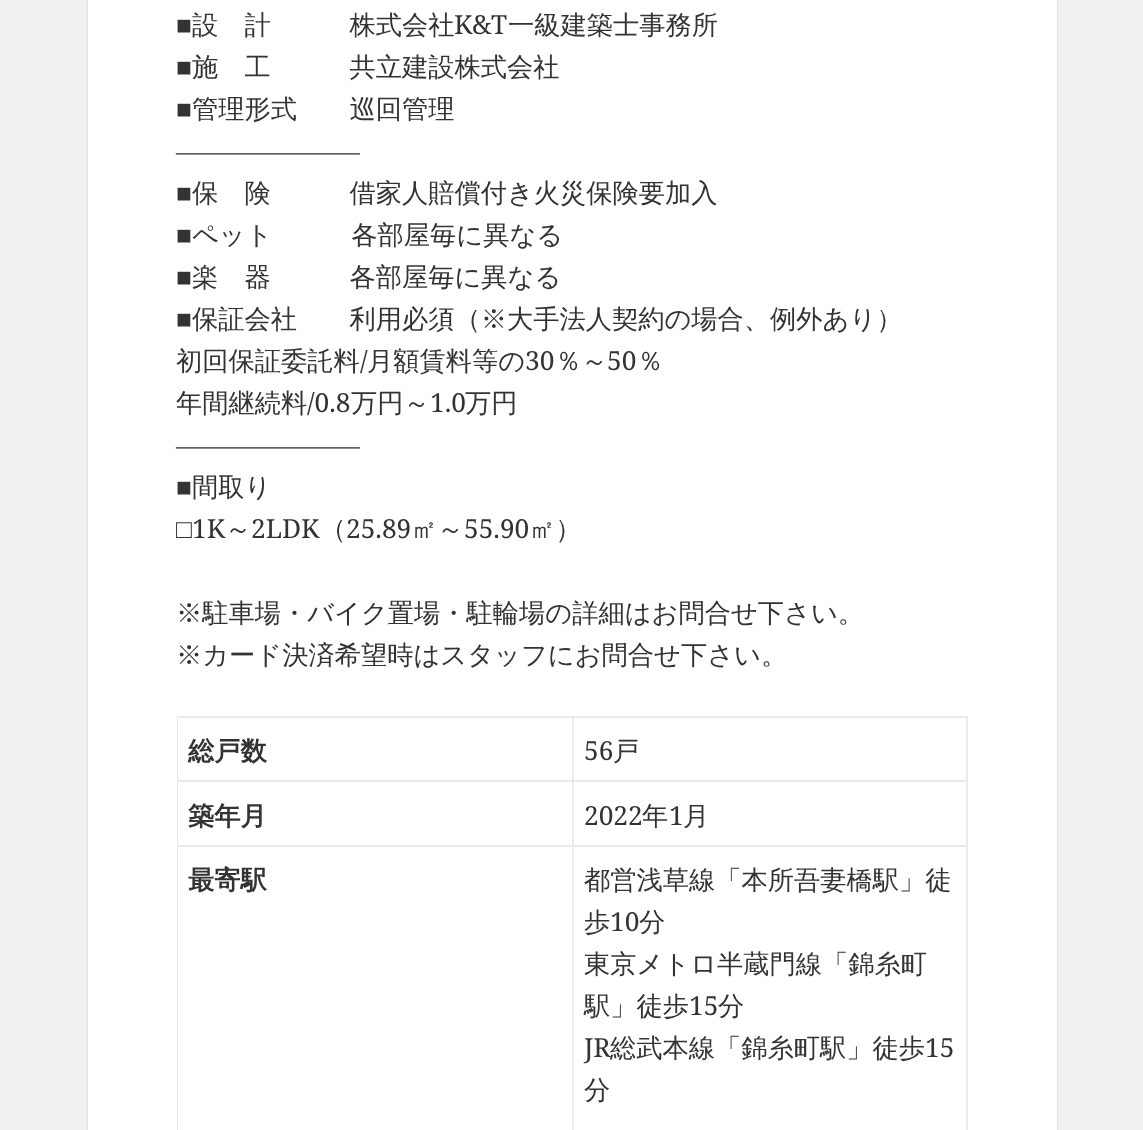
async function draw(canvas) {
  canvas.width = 1143
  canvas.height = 1130
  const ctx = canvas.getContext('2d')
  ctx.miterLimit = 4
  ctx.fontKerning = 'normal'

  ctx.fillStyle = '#f1f1f1'
  ctx.fillRect(0, 0, 1143, 1130)
  ctx.fillStyle = '#00000026'
  ctx.filter = 'blur(1px)'
  ctx.beginPath()
  ctx.rect(88, -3, 969, 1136)
  ctx.fill()
  ctx.filter = 'none'
  ctx.fillStyle = '#fff'
  ctx.fillRect(88, 0, 969, 1130)
  ctx.font = '26.25px Liberation Serif'
  ctx.fillStyle = '#333'
  ctx.fillText('■', 176, 34)
  ctx.font = '500 26.25px WenQuanYi Zen Hei'
  ctx.fillText('設　計　　　株式会社', 192, 34)
  ctx.font = '26.25px Noto Serif'
  ctx.fillText('K&T', 454, 34)
  ctx.font = '500 26.25px WenQuanYi Zen Hei'
  ctx.fillText('一級建築士事務所', 508, 34)
  ctx.font = '26.25px Liberation Serif'
  ctx.fillText('■', 176, 76)
  ctx.font = '500 26.25px WenQuanYi Zen Hei'
  ctx.fillText('施　工　　　共立建設株式会社', 192, 76)
  ctx.font = '26.25px Liberation Serif'
  ctx.fillText('■', 176, 118)
  ctx.font = '500 26.25px WenQuanYi Zen Hei'
  ctx.fillText('管理形式　　巡回管理', 192, 118)
  ctx.font = '26.25px Liberation Serif'
  ctx.fillText('―――――――', 176, 160)
  ctx.fillText('■', 176, 202)
  ctx.font = '500 26.25px WenQuanYi Zen Hei'
  ctx.fillText('保　険　　　借家人賠償付き火災保険要加入', 192, 202)
  ctx.font = '26.25px Liberation Serif'
  ctx.fillText('■', 176, 244)
  ctx.font = '500 26.25px WenQuanYi Zen Hei'
  ctx.fillText('ペット　　　各部屋毎に異なる', 192, 244)
  ctx.font = '26.25px Liberation Serif'
  ctx.fillText('■', 176, 286)
  ctx.font = '500 26.25px WenQuanYi Zen Hei'
  ctx.fillText('楽　器　　　各部屋毎に異なる', 192, 286)
  ctx.font = '26.25px Liberation Serif'
  ctx.fillText('■', 176, 328)
  ctx.font = '500 26.25px WenQuanYi Zen Hei'
  ctx.fillText('保証会社　　利用必須（※大手法人契約の場合、例外あり）', 192, 328)
  ctx.fillText('初回保証委託料', 176, 370)
  ctx.font = '26.25px Noto Serif'
  ctx.fillText('/', 360, 370)
  ctx.font = '500 26.25px WenQuanYi Zen Hei'
  ctx.fillText('月額賃料等の', 367, 370)
  ctx.font = '26.25px Noto Serif'
  ctx.fillText('30', 525, 370)
  ctx.font = '500 26.25px WenQuanYi Zen Hei'
  ctx.fillText('％～', 555, 370)
  ctx.font = '26.25px Noto Serif'
  ctx.fillText('50', 607, 370)
  ctx.font = '500 26.25px WenQuanYi Zen Hei'
  ctx.fillText('％', 637, 370)
  ctx.fillText('年間継続料', 176, 412)
  ctx.font = '26.25px Noto Serif'
  ctx.fillText('/0.8', 307, 412)
  ctx.font = '500 26.25px WenQuanYi Zen Hei'
  ctx.fillText('万円～', 351, 412)
  ctx.font = '26.25px Noto Serif'
  ctx.fillText('1.0', 430, 412)
  ctx.font = '500 26.25px WenQuanYi Zen Hei'
  ctx.fillText('万円', 465, 412)
  ctx.font = '26.25px Liberation Serif'
  ctx.fillText('―――――――', 176, 454)
  ctx.fillText('■', 176, 496)
  ctx.font = '500 26.25px WenQuanYi Zen Hei'
  ctx.fillText('間取り', 192, 496)
  ctx.font = '26.25px Liberation Serif'
  ctx.fillText('□', 176, 538)
  ctx.font = '26.25px Noto Serif'
  ctx.fillText('1K', 192, 538)
  ctx.font = '500 26.25px WenQuanYi Zen Hei'
  ctx.fillText('～', 225, 538)
  ctx.font = '26.25px Noto Serif'
  ctx.fillText('2LDK', 251, 538)
  ctx.font = '500 26.25px WenQuanYi Zen Hei'
  ctx.fillText('（', 320, 538)
  ctx.font = '26.25px Noto Serif'
  ctx.fillText('25.89', 346, 538)
  ctx.font = '500 26.25px WenQuanYi Zen Hei'
  ctx.fillText('㎡～', 411, 538)
  ctx.font = '26.25px Noto Serif'
  ctx.fillText('55.90', 464, 538)
  ctx.font = '500 26.25px WenQuanYi Zen Hei'
  ctx.fillText('㎡）', 529, 538)
  ctx.fillText('※駐車場・バイク置場・駐輪場の詳細はお問合せ下さい。', 176, 622)
  ctx.fillText('※カード決済希望時はスタッフにお問合せ下さい。', 176, 664)
  ctx.fillStyle = '#ebebeb'
  ctx.beginPath()
  ctx.moveTo(177, 716)
  ctx.lineTo(968, 716)
  ctx.lineTo(968, 718)
  ctx.lineTo(178, 718)
  ctx.closePath()
  ctx.fill()
  ctx.fillStyle = '#3333331a'
  ctx.beginPath()
  ctx.moveTo(177, 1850)
  ctx.lineTo(177, 716)
  ctx.lineTo(178, 718)
  ctx.lineTo(178, 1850)
  ctx.closePath()
  ctx.fill()
  ctx.fillStyle = '#ebebeb'
  ctx.beginPath()
  ctx.moveTo(574, 718)
  ctx.lineTo(574, 782)
  ctx.lineTo(572, 780)
  ctx.lineTo(572, 718)
  ctx.closePath()
  ctx.fill()
  ctx.fillStyle = '#3333331a'
  ctx.beginPath()
  ctx.moveTo(574, 782)
  ctx.lineTo(178, 782)
  ctx.lineTo(178, 780)
  ctx.lineTo(572, 780)
  ctx.closePath()
  ctx.fill()
  ctx.font = 'bold 26.25px WenQuanYi Zen Hei'
  ctx.fillStyle = '#333'
  ctx.fillText('総戸数', 188, 760)
  ctx.fillStyle = '#ebebeb'
  ctx.beginPath()
  ctx.moveTo(968, 718)
  ctx.lineTo(968, 782)
  ctx.lineTo(966, 780)
  ctx.lineTo(966, 718)
  ctx.closePath()
  ctx.fill()
  ctx.fillStyle = '#3333331a'
  ctx.beginPath()
  ctx.moveTo(968, 782)
  ctx.lineTo(574, 782)
  ctx.lineTo(574, 780)
  ctx.lineTo(966, 780)
  ctx.closePath()
  ctx.fill()
  ctx.font = '26.25px Noto Serif'
  ctx.fillStyle = '#333'
  ctx.fillText('56', 584, 760)
  ctx.font = '500 26.25px WenQuanYi Zen Hei'
  ctx.fillText('戸', 613, 760)
  ctx.fillStyle = '#ebebeb'
  ctx.beginPath()
  ctx.moveTo(574, 782)
  ctx.lineTo(574, 847)
  ctx.lineTo(572, 845)
  ctx.lineTo(572, 782)
  ctx.closePath()
  ctx.fill()
  ctx.fillStyle = '#3333331a'
  ctx.beginPath()
  ctx.moveTo(574, 847)
  ctx.lineTo(178, 847)
  ctx.lineTo(178, 845)
  ctx.lineTo(572, 845)
  ctx.closePath()
  ctx.fill()
  ctx.font = 'bold 26.25px WenQuanYi Zen Hei'
  ctx.fillStyle = '#333'
  ctx.fillText('築年月', 188, 825)
  ctx.fillStyle = '#ebebeb'
  ctx.beginPath()
  ctx.moveTo(968, 782)
  ctx.lineTo(968, 847)
  ctx.lineTo(966, 845)
  ctx.lineTo(966, 782)
  ctx.closePath()
  ctx.fill()
  ctx.fillStyle = '#3333331a'
  ctx.beginPath()
  ctx.moveTo(968, 847)
  ctx.lineTo(574, 847)
  ctx.lineTo(574, 845)
  ctx.lineTo(966, 845)
  ctx.closePath()
  ctx.fill()
  ctx.font = '26.25px Noto Serif'
  ctx.fillStyle = '#333'
  ctx.fillText('2022', 584, 825)
  ctx.font = '500 26.25px WenQuanYi Zen Hei'
  ctx.fillText('年', 642, 825)
  ctx.font = '26.25px Noto Serif'
  ctx.fillText('1', 669, 825)
  ctx.font = '500 26.25px WenQuanYi Zen Hei'
  ctx.fillText('月', 683, 825)
  ctx.fillStyle = '#ebebeb'
  ctx.beginPath()
  ctx.moveTo(574, 847)
  ctx.lineTo(574, 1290)
  ctx.lineTo(572, 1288)
  ctx.lineTo(572, 847)
  ctx.closePath()
  ctx.fill()
  ctx.font = 'bold 26.25px WenQuanYi Zen Hei'
  ctx.fillStyle = '#333'
  ctx.fillText('最寄駅', 188, 889)
  ctx.fillStyle = '#ebebeb'
  ctx.beginPath()
  ctx.moveTo(968, 847)
  ctx.lineTo(968, 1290)
  ctx.lineTo(966, 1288)
  ctx.lineTo(966, 847)
  ctx.closePath()
  ctx.fill()
  ctx.font = '500 26.25px WenQuanYi Zen Hei'
  ctx.fillStyle = '#333'
  ctx.fillText('都営浅草線「本所吾妻橋駅」徒', 584, 889)
  ctx.fillText('歩', 584, 931)
  ctx.font = '26.25px Noto Serif'
  ctx.fillText('10', 610, 931)
  ctx.font = '500 26.25px WenQuanYi Zen Hei'
  ctx.fillText('分', 639, 931)
  ctx.fillText('東京メトロ半蔵門線「錦糸町', 584, 973)
  ctx.fillText('駅」徒歩', 584, 1015)
  ctx.font = '26.25px Noto Serif'
  ctx.fillText('15', 689, 1015)
  ctx.font = '500 26.25px WenQuanYi Zen Hei'
  ctx.fillText('分', 718, 1015)
  ctx.font = '26.25px Noto Serif'
  ctx.fillText('JR', 584, 1057)
  ctx.font = '500 26.25px WenQuanYi Zen Hei'
  ctx.fillText('総武本線「錦糸町駅」徒歩', 610, 1057)
  ctx.font = '26.25px Noto Serif'
  ctx.fillText('15', 925, 1057)
  ctx.font = '500 26.25px WenQuanYi Zen Hei'
  ctx.fillText('分', 584, 1099)
}

draw(document.querySelector('canvas'))
